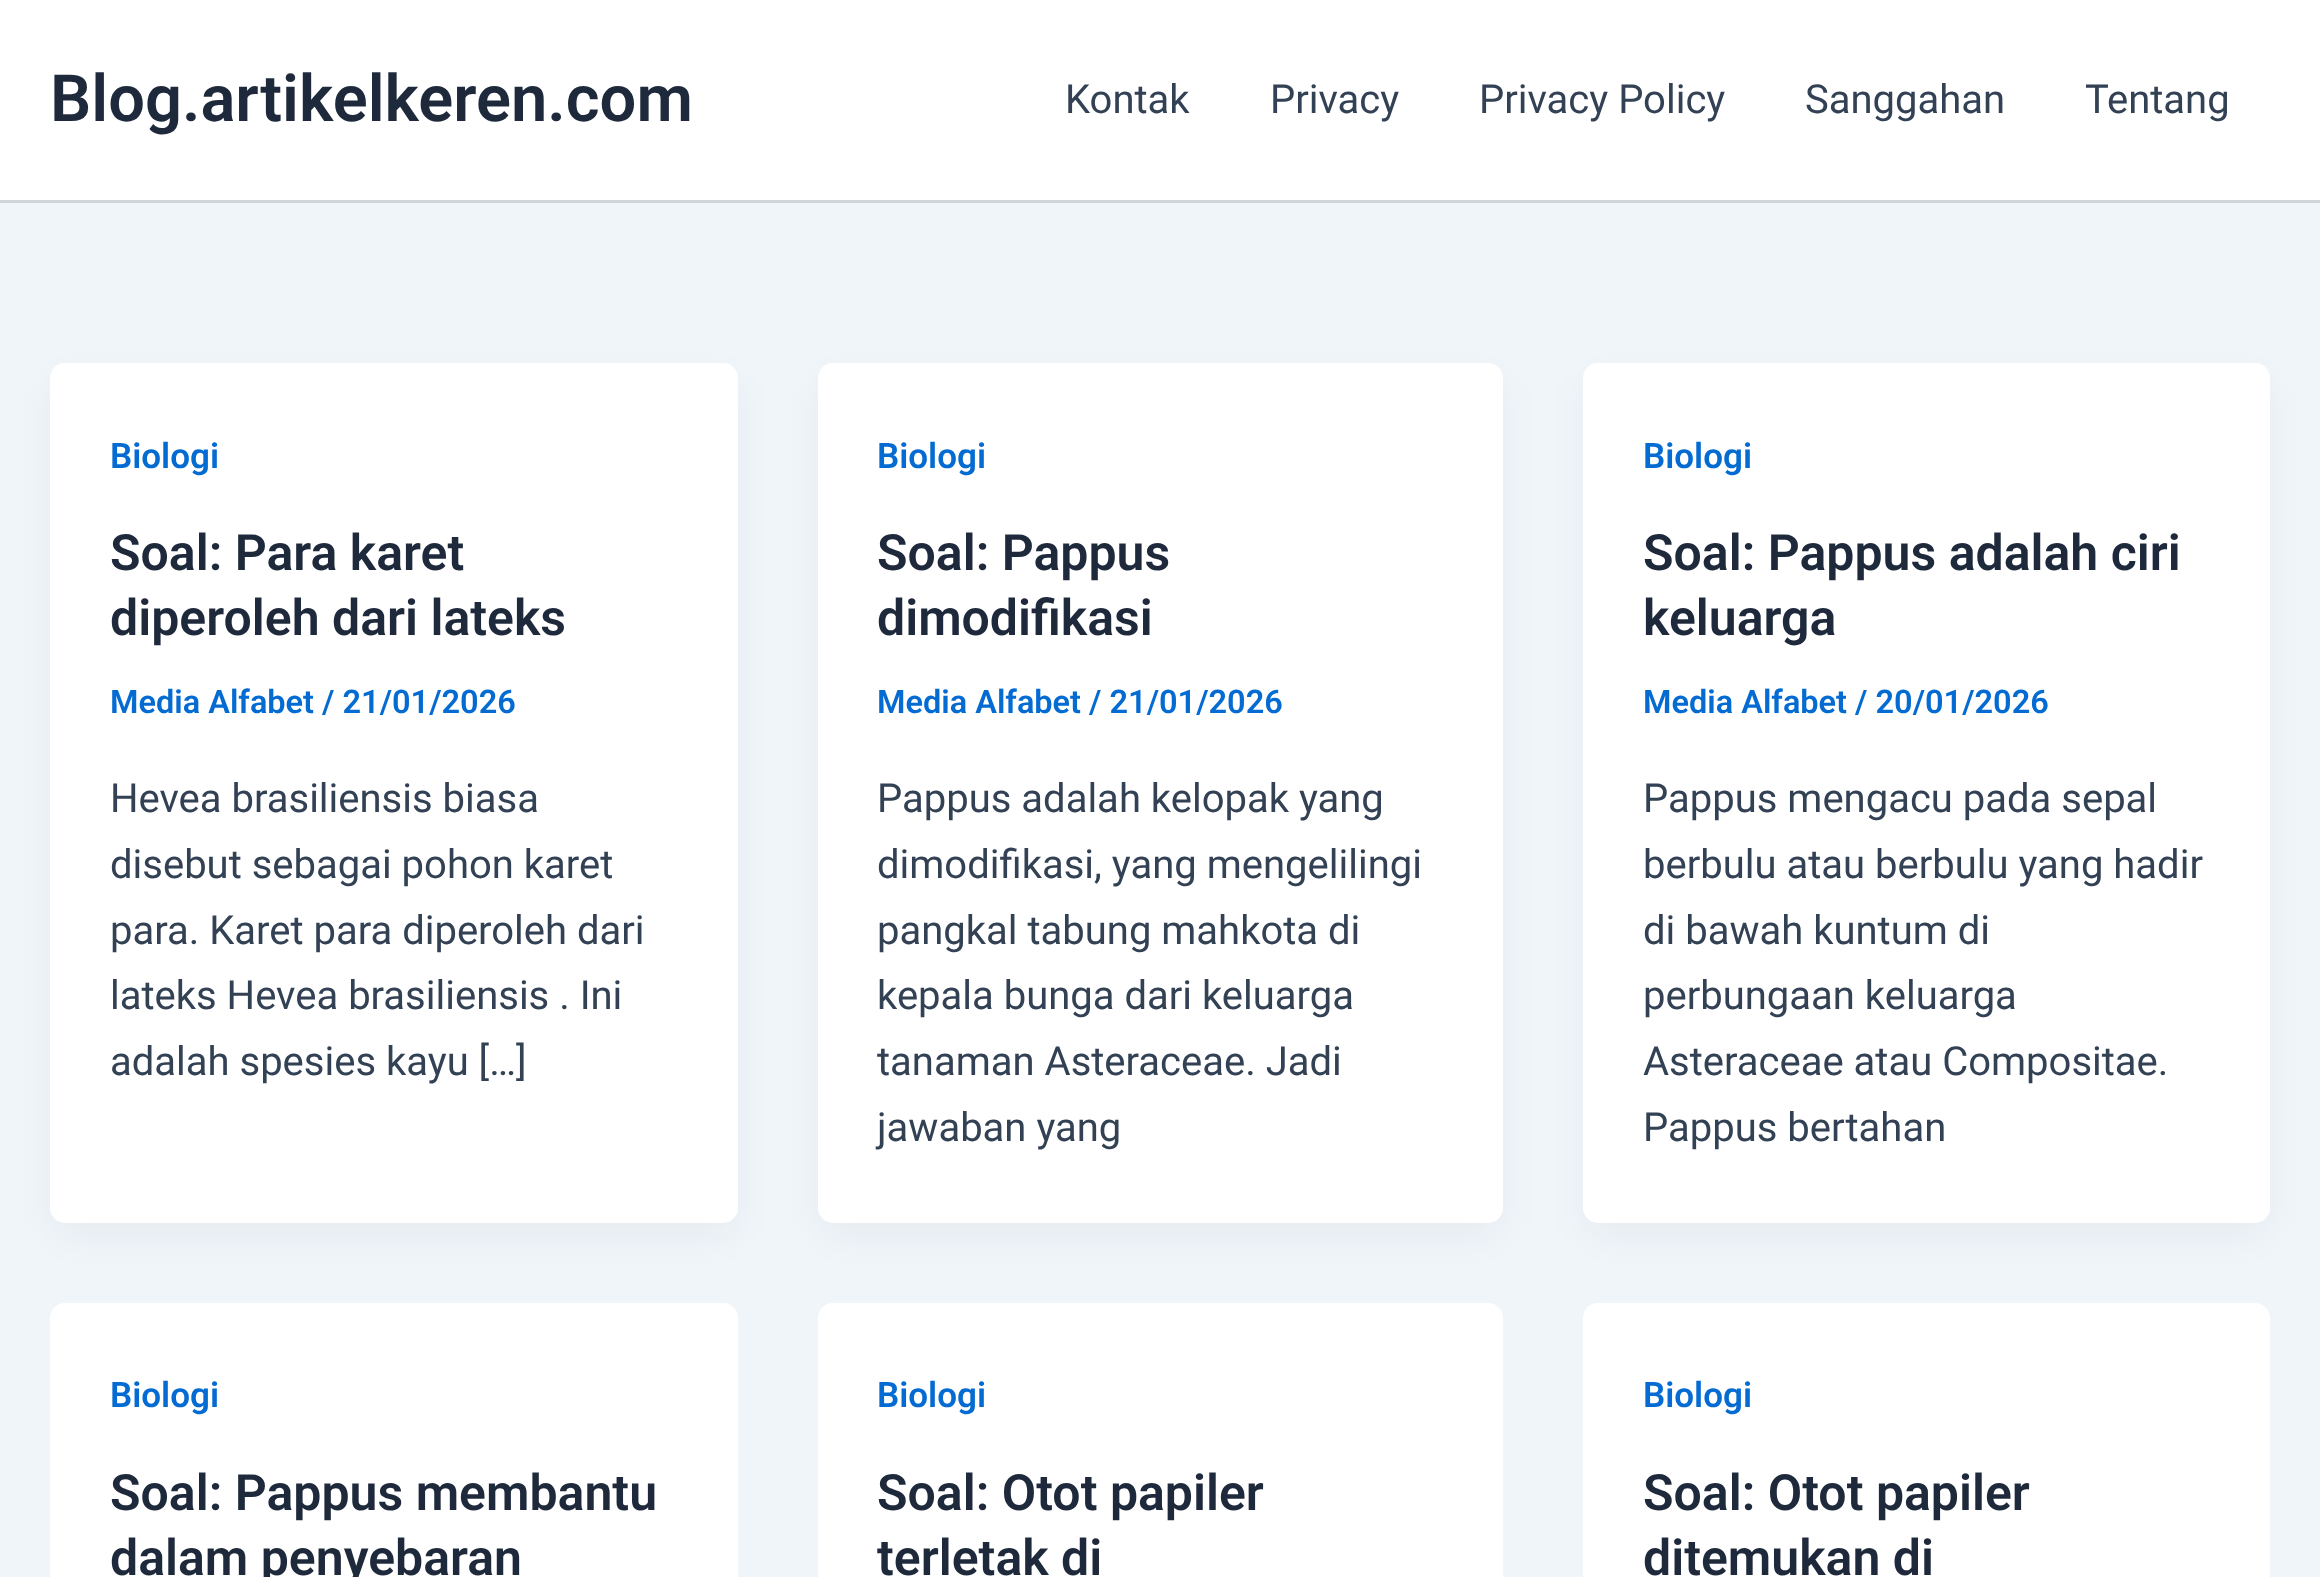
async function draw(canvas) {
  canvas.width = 2320
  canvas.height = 1577
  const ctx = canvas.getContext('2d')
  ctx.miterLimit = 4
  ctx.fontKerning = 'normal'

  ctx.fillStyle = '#f0f5fa'
  ctx.fillRect(0, 0, 2320, 1577)
  ctx.fillStyle = '#fff'
  ctx.fillRect(0, 0, 2320, 200)
  ctx.fillStyle = '#d1d5db'
  ctx.fillRect(0, 200, 2320, 3)
  ctx.font = '600 65px Roboto'
  ctx.fillStyle = '#1e293b'
  ctx.fillText('Blog.artikelkeren.com', 50, 121)
  ctx.font = '40px Roboto'
  ctx.fillStyle = '#334155'
  ctx.fillText('Kontak', 1065, 113)
  ctx.fillText('Privacy', 1270, 113)
  ctx.fillText('Privacy Policy', 1479, 113)
  ctx.fillText('Sanggahan', 1805, 113)
  ctx.fillText('Tentang', 2085, 113)
  ctx.fillStyle = '#1018280d'
  ctx.filter = 'blur(19px)'
  ctx.beginPath()
  ctx.roundRect(55, 383, 678, 850, 10)
  ctx.fill()
  ctx.filter = 'none'
  ctx.fillStyle = '#fff'
  ctx.beginPath()
  ctx.roundRect(50, 363, 688, 860, 15)
  ctx.fill()
  ctx.font = '600 35px Roboto'
  ctx.fillStyle = '#046bd2'
  ctx.fillText('Biologi', 110, 468)
  ctx.font = '600 50px Roboto'
  ctx.fillStyle = '#1e293b'
  ctx.fillText('Soal: Para karet', 110, 570)
  ctx.fillText('diperoleh dari lateks', 110, 635)
  ctx.font = '600 32.5px Roboto'
  ctx.fillStyle = '#046bd2'
  ctx.fillText('Media Alfabet / 21/01/2026', 110, 713)
  ctx.font = '40px Roboto'
  ctx.fillStyle = '#334155'
  ctx.fillText('Hevea brasiliensis biasa', 110, 812)
  ctx.fillText('disebut sebagai pohon karet', 110, 878)
  ctx.fillText('para. Karet para diperoleh dari', 110, 944)
  ctx.fillText('lateks Hevea brasiliensis . Ini', 110, 1009)
  ctx.fillText('adalah spesies kayu […]', 110, 1075)
  ctx.fillStyle = '#1018280d'
  ctx.filter = 'blur(19px)'
  ctx.beginPath()
  ctx.roundRect(823, 383, 675, 850, 10)
  ctx.fill()
  ctx.filter = 'none'
  ctx.fillStyle = '#fff'
  ctx.beginPath()
  ctx.roundRect(818, 363, 685, 860, 15)
  ctx.fill()
  ctx.font = '600 35px Roboto'
  ctx.fillStyle = '#046bd2'
  ctx.fillText('Biologi', 877, 468)
  ctx.font = '600 50px Roboto'
  ctx.fillStyle = '#1e293b'
  ctx.fillText('Soal: Pappus', 877, 570)
  ctx.fillText('dimodifikasi', 877, 635)
  ctx.font = '600 32.5px Roboto'
  ctx.fillStyle = '#046bd2'
  ctx.fillText('Media Alfabet / 21/01/2026', 877, 713)
  ctx.font = '40px Roboto'
  ctx.fillStyle = '#334155'
  ctx.fillText('Pappus adalah kelopak yang', 877, 812)
  ctx.fillText('dimodifikasi, yang mengelilingi', 877, 878)
  ctx.fillText('pangkal tabung mahkota di', 877, 944)
  ctx.fillText('kepala bunga dari keluarga', 877, 1009)
  ctx.fillText('tanaman Asteraceae. Jadi', 877, 1075)
  ctx.fillText('jawaban yang', 877, 1141)
  ctx.fillStyle = '#1018280d'
  ctx.filter = 'blur(19px)'
  ctx.beginPath()
  ctx.roundRect(1588, 383, 677, 850, 10)
  ctx.fill()
  ctx.filter = 'none'
  ctx.fillStyle = '#fff'
  ctx.beginPath()
  ctx.roundRect(1583, 363, 687, 860, 15)
  ctx.fill()
  ctx.font = '600 35px Roboto'
  ctx.fillStyle = '#046bd2'
  ctx.fillText('Biologi', 1643, 468)
  ctx.font = '600 50px Roboto'
  ctx.fillStyle = '#1e293b'
  ctx.fillText('Soal: Pappus adalah ciri', 1643, 570)
  ctx.fillText('keluarga', 1643, 635)
  ctx.font = '600 32.5px Roboto'
  ctx.fillStyle = '#046bd2'
  ctx.fillText('Media Alfabet / 20/01/2026', 1643, 713)
  ctx.font = '40px Roboto'
  ctx.fillStyle = '#334155'
  ctx.fillText('Pappus mengacu pada sepal', 1643, 812)
  ctx.fillText('berbulu atau berbulu yang hadir', 1643, 878)
  ctx.fillText('di bawah kuntum di', 1643, 944)
  ctx.fillText('perbungaan keluarga', 1643, 1009)
  ctx.fillText('Asteraceae atau Compositae.', 1643, 1075)
  ctx.fillText('Pappus bertahan', 1643, 1141)
  ctx.fillStyle = '#fff'
  ctx.beginPath()
  ctx.roundRect(50, 1303, 688, 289, 15)
  ctx.fill()
  ctx.font = '600 35px Roboto'
  ctx.fillStyle = '#046bd2'
  ctx.fillText('Biologi', 110, 1407)
  ctx.font = '600 50px Roboto'
  ctx.fillStyle = '#1e293b'
  ctx.fillText('Soal: Pappus membantu', 110, 1510)
  ctx.fillText('dalam penyebaran', 110, 1575)
  ctx.fillStyle = '#fff'
  ctx.beginPath()
  ctx.roundRect(818, 1303, 685, 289, 15)
  ctx.fill()
  ctx.font = '600 35px Roboto'
  ctx.fillStyle = '#046bd2'
  ctx.fillText('Biologi', 877, 1407)
  ctx.font = '600 50px Roboto'
  ctx.fillStyle = '#1e293b'
  ctx.fillText('Soal: Otot papiler', 877, 1510)
  ctx.fillText('terletak di', 877, 1575)
  ctx.fillStyle = '#fff'
  ctx.beginPath()
  ctx.roundRect(1583, 1303, 687, 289, 15)
  ctx.fill()
  ctx.font = '600 35px Roboto'
  ctx.fillStyle = '#046bd2'
  ctx.fillText('Biologi', 1643, 1407)
  ctx.font = '600 50px Roboto'
  ctx.fillStyle = '#1e293b'
  ctx.fillText('Soal: Otot papiler', 1643, 1510)
  ctx.fillText('ditemukan di', 1643, 1575)
}

draw(document.querySelector('canvas'))
